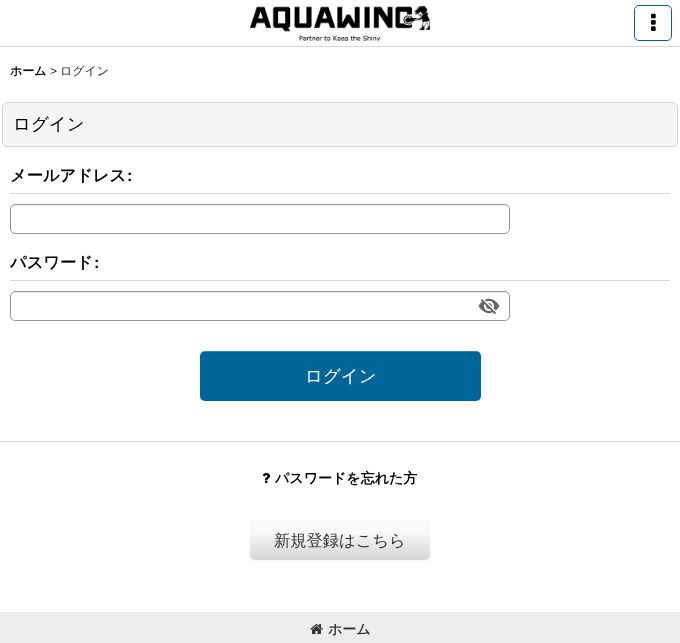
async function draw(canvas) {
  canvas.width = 680
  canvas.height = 643
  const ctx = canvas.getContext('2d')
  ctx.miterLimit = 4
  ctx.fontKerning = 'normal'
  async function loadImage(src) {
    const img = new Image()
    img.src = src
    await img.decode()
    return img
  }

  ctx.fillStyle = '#fff'
  ctx.fillRect(0, 0, 680, 643)
  ctx.fillStyle = '#d6d6d6'
  ctx.fillRect(0, 46, 680, 1)
  ctx.drawImage(await loadImage('image0.png'), 250, 5, 180, 36)
  ctx.beginPath()
  ctx.roundRect(634.5, 5.5, 37, 35, 4.5)
  ctx.strokeStyle = '#006598'
  ctx.stroke()
  ctx.drawImage(await loadImage('image1.png'), 651, 13, 5, 18)
  ctx.font = 'bold 12px WenQuanYi Zen Hei'
  ctx.fillStyle = '#000'
  ctx.fillText('ホーム', 10, 75)
  ctx.font = '12px Liberation Sans'
  ctx.fillStyle = '#212529'
  ctx.fillText('>', 50, 75)
  ctx.font = '500 12px WenQuanYi Zen Hei'
  ctx.fillText('ログイン', 60, 75)
  ctx.fillStyle = '#f5f5f5'
  ctx.beginPath()
  ctx.roundRect(2.5, 102.5, 675, 44, 4.5)
  ctx.fill()
  ctx.strokeStyle = '#d6d6d6'
  ctx.stroke()
  ctx.font = '500 17.5px WenQuanYi Zen Hei'
  ctx.fillStyle = '#000'
  ctx.fillText('ログイン', 13, 130)
  ctx.fillStyle = '#d6d6d6'
  ctx.fillRect(10, 193, 660, 1)
  ctx.font = 'bold 16.25px WenQuanYi Zen Hei'
  ctx.fillStyle = '#000'
  ctx.fillText('メールアドレス', 10, 181)
  ctx.font = 'bold 16.25px Liberation Sans'
  ctx.fillText(':', 127, 181)
  ctx.fillStyle = '#ececec'
  ctx.beginPath()
  ctx.moveTo(15, 206)
  ctx.lineTo(505, 206)
  ctx.bezierCurveTo(507, 206, 509, 208, 509, 210)
  ctx.bezierCurveTo(509, 207, 508, 205, 505, 205)
  ctx.lineTo(15, 205)
  ctx.bezierCurveTo(12, 205, 11, 207, 11, 210)
  ctx.bezierCurveTo(11, 208, 13, 206, 15, 206)
  ctx.closePath()
  ctx.fill()
  ctx.beginPath()
  ctx.roundRect(10.5, 204.5, 499, 29, 4.5)
  ctx.strokeStyle = '#999'
  ctx.stroke()
  ctx.fillStyle = '#d6d6d6'
  ctx.fillRect(10, 280, 660, 1)
  ctx.font = 'bold 16.25px WenQuanYi Zen Hei'
  ctx.fillStyle = '#000'
  ctx.fillText('パスワード', 10, 268)
  ctx.font = 'bold 16.25px Liberation Sans'
  ctx.fillText(':', 94, 268)
  ctx.fillStyle = '#ececec'
  ctx.beginPath()
  ctx.moveTo(15, 293)
  ctx.lineTo(505, 293)
  ctx.bezierCurveTo(507, 293, 509, 295, 509, 297)
  ctx.bezierCurveTo(509, 294, 508, 292, 505, 292)
  ctx.lineTo(15, 292)
  ctx.bezierCurveTo(12, 292, 11, 294, 11, 297)
  ctx.bezierCurveTo(11, 295, 13, 293, 15, 293)
  ctx.closePath()
  ctx.fill()
  ctx.beginPath()
  ctx.roundRect(10.5, 291.5, 499, 29, 4.5)
  ctx.stroke()
  ctx.drawImage(await loadImage('image2.png'), 478, 298, 22, 16)
  ctx.fillStyle = '#0000000d'
  ctx.filter = 'blur(1px)'
  ctx.beginPath()
  ctx.roundRect(200, 352, 281, 50, 5)
  ctx.fill()
  ctx.filter = 'none'
  ctx.fillStyle = '#006598'
  ctx.beginPath()
  ctx.roundRect(200, 351, 281, 50, 5)
  ctx.fill()
  ctx.fillStyle = '#ffffff33'
  ctx.beginPath()
  ctx.moveTo(205, 352)
  ctx.lineTo(476, 352)
  ctx.bezierCurveTo(479, 352, 481, 354, 481, 357)
  ctx.lineTo(481, 356)
  ctx.bezierCurveTo(481, 353, 479, 351, 476, 351)
  ctx.lineTo(205, 351)
  ctx.bezierCurveTo(202, 351, 200, 353, 200, 356)
  ctx.lineTo(200, 357)
  ctx.bezierCurveTo(200, 354, 202, 352, 205, 352)
  ctx.closePath()
  ctx.fill()
  ctx.font = '500 17.5px WenQuanYi Zen Hei'
  ctx.fillStyle = '#fff'
  ctx.fillText('ログイン', 305, 382)
  ctx.fillStyle = '#d6d6d6'
  ctx.fillRect(0, 441, 680, 1)
  ctx.drawImage(await loadImage('image3.png'), 262, 473, 8, 10)
  ctx.font = 'bold 14px WenQuanYi Zen Hei'
  ctx.fillStyle = '#000'
  ctx.fillText('パスワードを忘れた方', 275, 483)
  ctx.fillStyle = '#0000000d'
  ctx.filter = 'blur(1px)'
  ctx.beginPath()
  ctx.roundRect(250, 521, 180, 40, 5)
  ctx.fill()
  ctx.filter = 'none'
  ctx.fillStyle = '#f9f9f9'
  ctx.beginPath()
  ctx.roundRect(250, 520, 180, 40, 5)
  ctx.fill()
  ctx.drawImage(await loadImage('image4.png'), 250, 535, 180, 25)
  ctx.font = '500 16.25px WenQuanYi Zen Hei'
  ctx.fillStyle = '#333'
  ctx.fillText('新規登録はこちら', 274, 546)
  ctx.fillStyle = '#ededed'
  ctx.fillRect(0, 612, 680, 31)
  ctx.drawImage(await loadImage('image5.png'), 310, 624, 13, 10)
  ctx.font = 'bold 14px WenQuanYi Zen Hei'
  ctx.fillStyle = '#333'
  ctx.fillText('ホーム', 328, 634)
}

draw(document.querySelector('canvas'))
